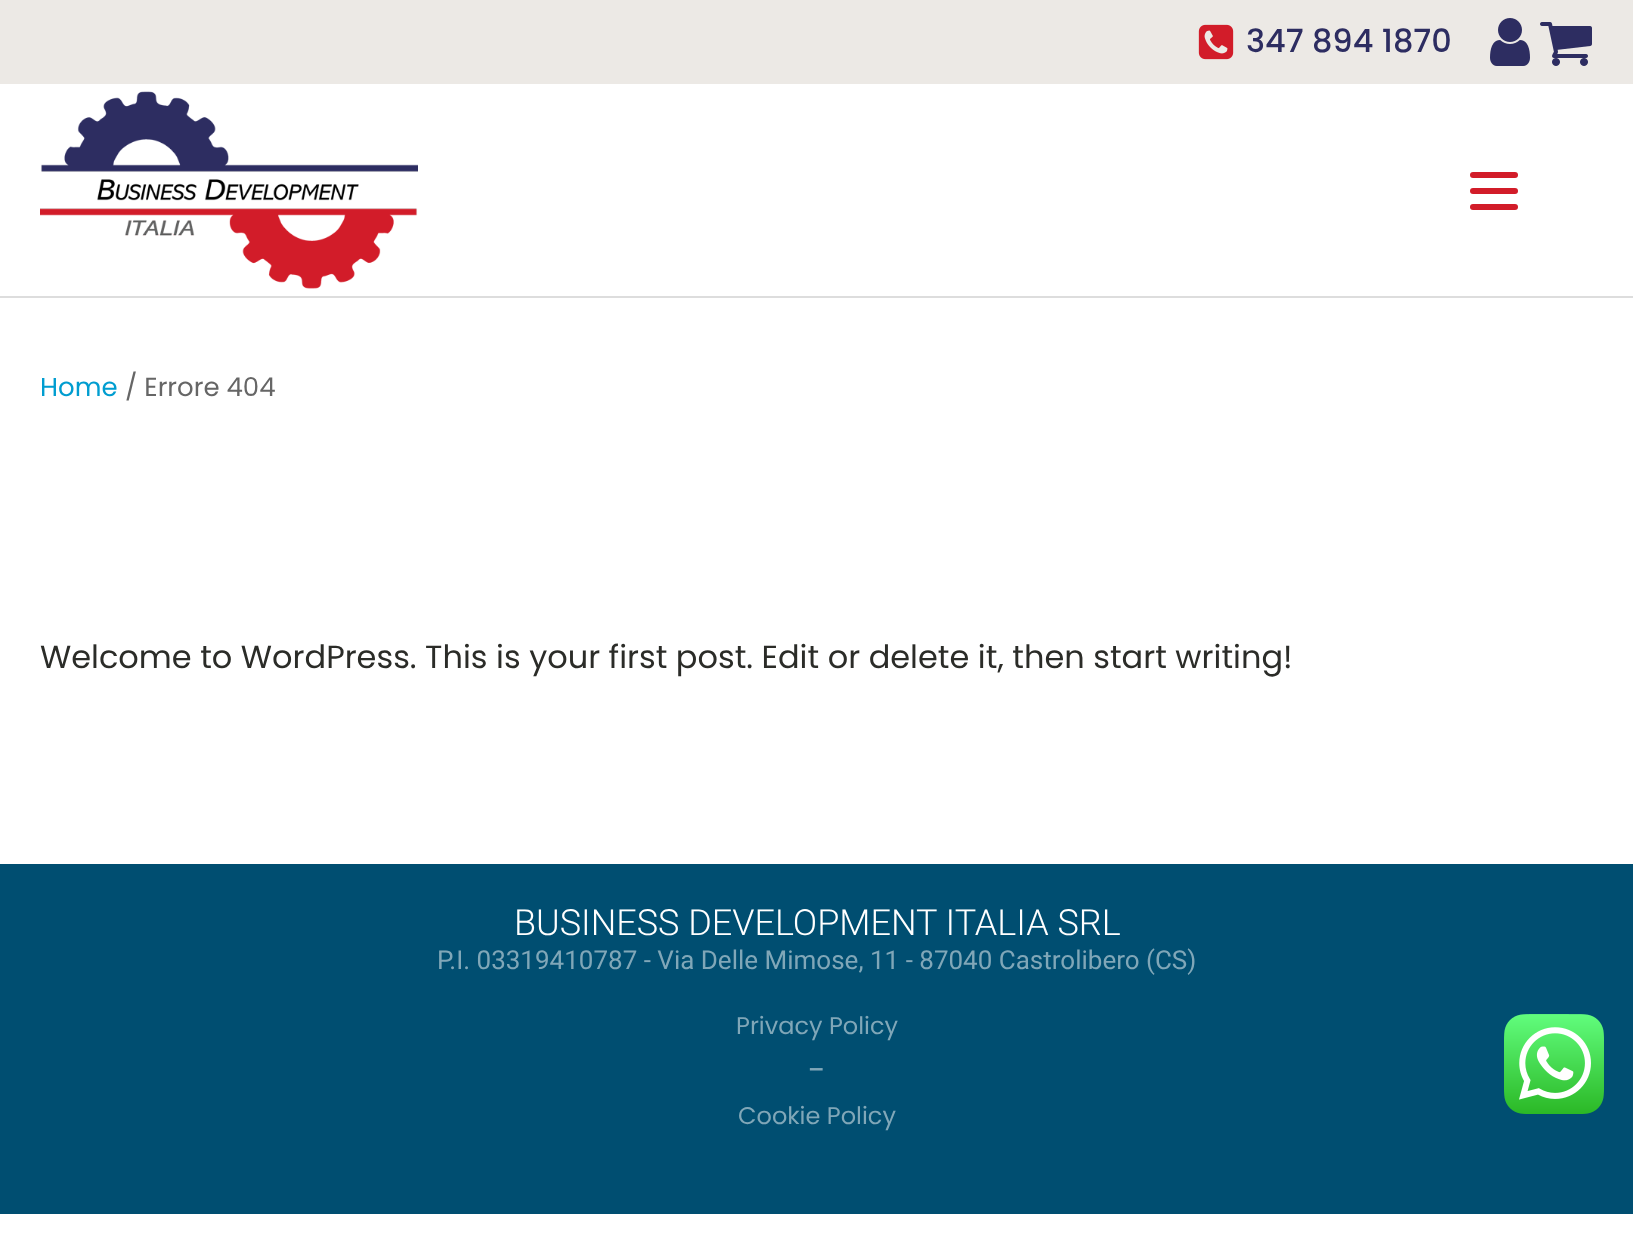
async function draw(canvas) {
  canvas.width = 1633
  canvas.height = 1234
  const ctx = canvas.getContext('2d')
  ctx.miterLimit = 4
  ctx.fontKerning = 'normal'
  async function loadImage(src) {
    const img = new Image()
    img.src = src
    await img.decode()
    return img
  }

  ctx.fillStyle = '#fff'
  ctx.fillRect(0, 0, 1633, 1234)
  ctx.fillStyle = '#ece9e5'
  ctx.fillRect(0, 0, 1633, 84)
  ctx.drawImage(await loadImage('image0.png'), 1198, 24, 36, 36)
  ctx.font = '500 32px Poppins'
  ctx.fillStyle = '#2d2d61'
  ctx.fillText('347 894 1870', 1246, 52)
  ctx.drawImage(await loadImage('image1.png'), 1490, 18, 40, 48)
  ctx.drawImage(await loadImage('image2.png'), 1540, 22, 52, 44)
  ctx.fillStyle = '#ddd'
  ctx.fillRect(0, 296, 1633, 2)
  ctx.drawImage(await loadImage('image3.png'), 40, 91, 378, 198)
  ctx.fillStyle = '#d21c29'
  ctx.beginPath()
  ctx.roundRect(1470, 172, 48, 6, 3)
  ctx.fill()
  ctx.beginPath()
  ctx.roundRect(1470, 188, 48, 6, 3)
  ctx.fill()
  ctx.beginPath()
  ctx.roundRect(1470, 204, 48, 6, 3)
  ctx.fill()
  ctx.font = '26px Poppins'
  ctx.fillStyle = '#009dd0'
  ctx.fillText('Home', 40, 396)
  ctx.fillStyle = '#666'
  ctx.fillText('/ Errore 404', 125, 396)
  ctx.font = '32px Poppins'
  ctx.fillStyle = '#2b2c28'
  ctx.fillText('Welcome to WordPress. This is your first post. Edit or delete it, then start writing!', 40, 668)
  ctx.fillStyle = '#004e71'
  ctx.fillRect(0, 864, 1633, 350)
  ctx.font = '300 36px Roboto'
  ctx.fillStyle = '#fff'
  ctx.fillText('BUSINESS DEVELOPMENT ITALIA SRL', 514, 935)
  ctx.font = '26px Roboto'
  ctx.fillStyle = '#80a7b8'
  ctx.fillText('P.I. 03319410787 - Via Delle Mimose, 11 - 87040 Castrolibero (CS)', 437, 969)
  ctx.font = '24px Poppins'
  ctx.fillText('Privacy Policy', 736, 1034)
  ctx.font = '32px Poppins'
  ctx.fillText('-', 808, 1081)
  ctx.font = '24px Poppins'
  ctx.fillText('Cookie Policy', 738, 1124)
  ctx.drawImage(await loadImage('image4.png'), 1504, 1014, 100, 100)
}

draw(document.querySelector('canvas'))
